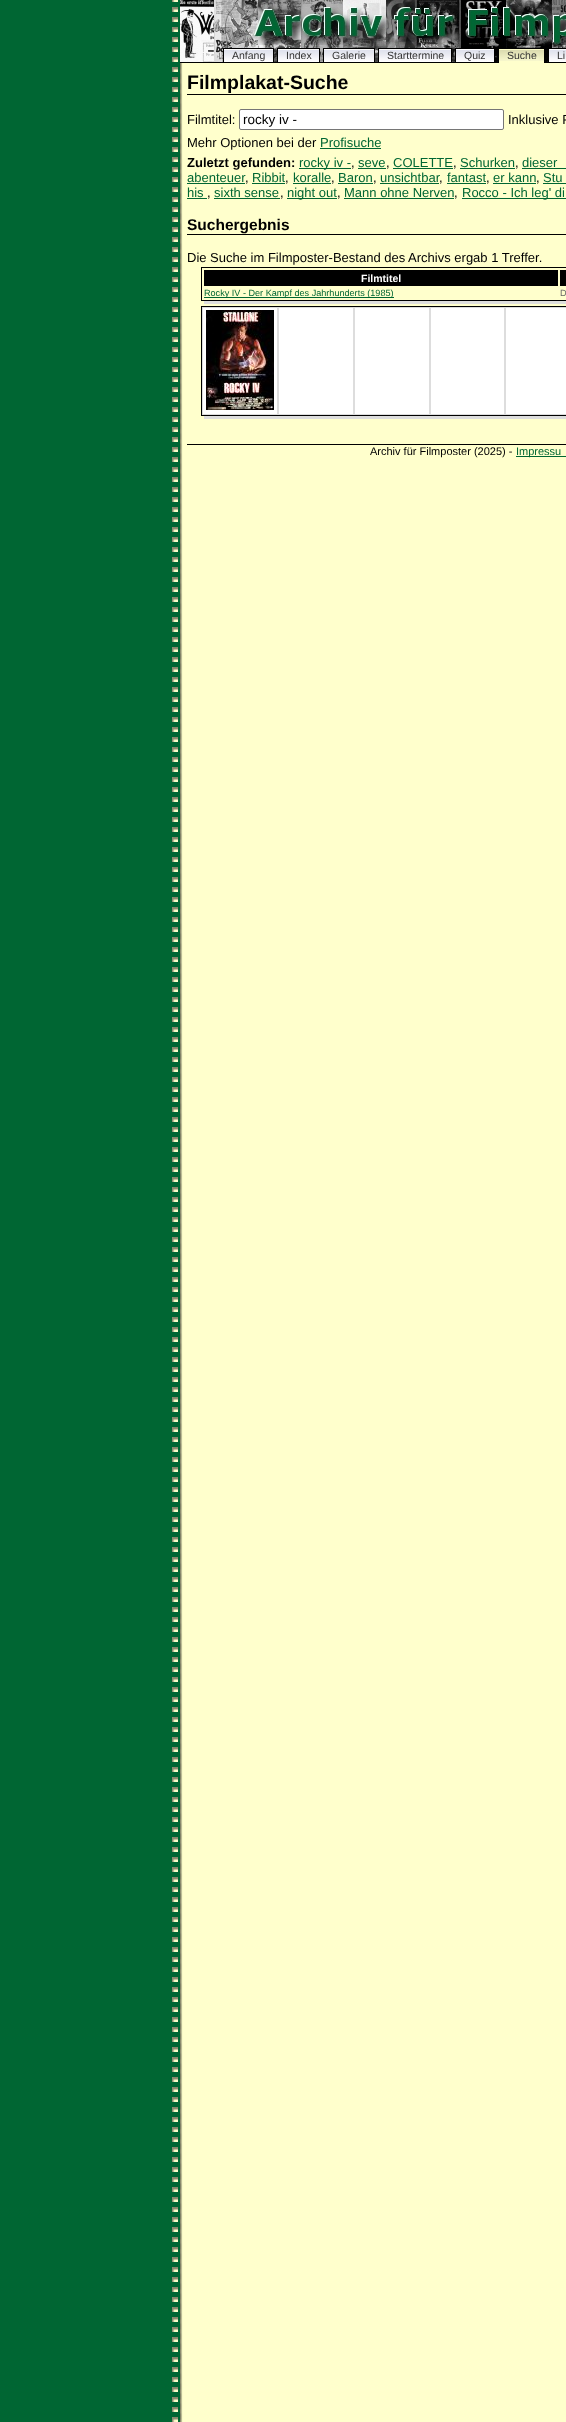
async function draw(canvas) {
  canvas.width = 566
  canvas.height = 2422
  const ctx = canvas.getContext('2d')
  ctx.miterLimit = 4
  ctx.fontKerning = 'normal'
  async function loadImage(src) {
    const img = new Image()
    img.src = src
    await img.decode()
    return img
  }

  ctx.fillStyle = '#063'
  ctx.fillRect(0, 0, 566, 2422)
  ctx.drawImage(await loadImage('image0.png'), 172, 0, 394, 2422)
  ctx.fillStyle = '#000'
  ctx.fillRect(180, 62, 386, 1)
  ctx.drawImage(await loadImage('image1.png'), 180, 0, 386, 62)
  ctx.fillStyle = '#fff'
  ctx.fillRect(224, 49, 49, 13)
  ctx.drawImage(await loadImage('image2.png'), 224, 50, 49, 11)
  ctx.fillStyle = '#000'
  ctx.fillRect(223, 48, 51, 1)
  ctx.fillRect(273, 48, 1, 14)
  ctx.fillRect(223, 48, 1, 14)
  ctx.font = '10.5px Liberation Sans'
  ctx.fillStyle = '#333'
  ctx.fillText('Anfang', 232, 59)
  ctx.fillStyle = '#fff'
  ctx.fillRect(278, 49, 41, 13)
  ctx.drawImage(await loadImage('image3.png'), 278, 50, 41, 11)
  ctx.fillStyle = '#000'
  ctx.fillRect(277, 48, 43, 1)
  ctx.fillRect(319, 48, 1, 14)
  ctx.fillRect(277, 48, 1, 14)
  ctx.fillStyle = '#333'
  ctx.fillText('Index', 286, 59)
  ctx.fillStyle = '#fff'
  ctx.fillRect(324, 49, 50, 13)
  ctx.drawImage(await loadImage('image4.png'), 324, 50, 50, 11)
  ctx.fillStyle = '#000'
  ctx.fillRect(323, 48, 52, 1)
  ctx.fillRect(374, 48, 1, 14)
  ctx.fillRect(323, 48, 1, 14)
  ctx.fillStyle = '#333'
  ctx.fillText('Galerie', 332, 59)
  ctx.fillStyle = '#fff'
  ctx.fillRect(379, 49, 72, 13)
  ctx.drawImage(await loadImage('image5.png'), 379, 50, 72, 11)
  ctx.fillStyle = '#000'
  ctx.fillRect(378, 48, 74, 1)
  ctx.fillRect(451, 48, 1, 14)
  ctx.fillRect(378, 48, 1, 14)
  ctx.fillStyle = '#333'
  ctx.fillText('Starttermine', 387, 59)
  ctx.fillStyle = '#fff'
  ctx.fillRect(456, 49, 38, 13)
  ctx.drawImage(await loadImage('image6.png'), 456, 50, 38, 11)
  ctx.fillStyle = '#000'
  ctx.fillRect(455, 48, 40, 1)
  ctx.fillRect(494, 48, 1, 14)
  ctx.fillRect(455, 48, 1, 14)
  ctx.fillStyle = '#333'
  ctx.fillText('Quiz', 464, 59)
  ctx.fillStyle = '#ffc'
  ctx.fillRect(499, 49, 45, 14)
  ctx.drawImage(await loadImage('image7.png'), 499, 50, 45, 11)
  ctx.fillStyle = '#000'
  ctx.fillRect(517, 48, 28, 1)
  ctx.fillRect(498, 61, 1, 2)
  ctx.fillStyle = '#333'
  ctx.fillText('Suche', 507, 59)
  ctx.fillStyle = '#fff'
  ctx.fillRect(549, 49, 17, 13)
  ctx.drawImage(await loadImage('image8.png'), 549, 50, 17, 11)
  ctx.fillStyle = '#000'
  ctx.fillRect(548, 48, 18, 1)
  ctx.fillRect(548, 60, 1, 2)
  ctx.fillStyle = '#333'
  ctx.fillText('Li', 557, 59)
  ctx.fillStyle = '#000'
  ctx.fillRect(187, 94, 379, 1)
  ctx.font = 'bold 19.5px Liberation Sans'
  ctx.fillText('Filmplakat-Suche', 187, 89)
  ctx.font = '13px Liberation Sans'
  ctx.fillText('Filmtitel:', 187, 124)
  ctx.fillStyle = '#fff'
  ctx.beginPath()
  ctx.roundRect(239.5, 109.5, 264, 20, 1.5)
  ctx.fill()
  ctx.strokeStyle = '#767676'
  ctx.stroke()
  ctx.font = '13.5px Liberation Sans'
  ctx.fillStyle = '#000'
  ctx.fillText('rocky iv -', 243, 124)
  ctx.font = '13px Liberation Sans'
  ctx.fillText('Inklusive P', 508, 124)
  ctx.fillText('Mehr Optionen bei der', 187, 147)
  ctx.fillStyle = '#063'
  ctx.fillText('Profisuche', 320, 147)
  ctx.fillRect(320, 148, 61, 1)
  ctx.font = 'bold 13px Liberation Sans'
  ctx.fillStyle = '#000'
  ctx.fillText('Zuletzt gefunden:', 187, 167)
  ctx.fillStyle = '#063'
  ctx.fillRect(299, 168, 52, 1)
  ctx.font = '13px Liberation Sans'
  ctx.fillText('rocky iv -', 299, 167)
  ctx.fillStyle = '#000'
  ctx.fillText(',', 351, 167)
  ctx.fillStyle = '#063'
  ctx.fillText('seve', 358, 167)
  ctx.fillRect(358, 168, 28, 1)
  ctx.fillStyle = '#000'
  ctx.fillText(',', 386, 167)
  ctx.fillStyle = '#063'
  ctx.fillText('COLETTE', 393, 167)
  ctx.fillRect(393, 168, 60, 1)
  ctx.fillStyle = '#000'
  ctx.fillText(',', 453, 167)
  ctx.fillStyle = '#063'
  ctx.fillText('Schurken', 460, 167)
  ctx.fillRect(460, 168, 55, 1)
  ctx.fillStyle = '#000'
  ctx.fillText(',', 515, 167)
  ctx.fillStyle = '#063'
  ctx.fillText('dieser', 522, 167)
  ctx.fillRect(522, 168, 44, 1)
  ctx.fillText('abenteuer', 187, 182)
  ctx.fillRect(187, 183, 58, 1)
  ctx.fillStyle = '#000'
  ctx.fillText(',', 245, 182)
  ctx.fillStyle = '#063'
  ctx.fillText('Ribbit', 252, 182)
  ctx.fillRect(252, 183, 33, 1)
  ctx.fillStyle = '#000'
  ctx.fillText(',', 285, 182)
  ctx.fillStyle = '#063'
  ctx.fillText('koralle', 293, 182)
  ctx.fillRect(293, 183, 38, 1)
  ctx.fillStyle = '#000'
  ctx.fillText(',', 331, 182)
  ctx.fillStyle = '#063'
  ctx.fillText('Baron', 338, 182)
  ctx.fillRect(338, 183, 35, 1)
  ctx.fillStyle = '#000'
  ctx.fillText(',', 373, 182)
  ctx.fillStyle = '#063'
  ctx.fillText('unsichtbar', 380, 182)
  ctx.fillRect(380, 183, 59, 1)
  ctx.fillStyle = '#000'
  ctx.fillText(',', 439, 182)
  ctx.fillStyle = '#063'
  ctx.fillText('fantast', 447, 182)
  ctx.fillRect(447, 183, 39, 1)
  ctx.fillStyle = '#000'
  ctx.fillText(',', 486, 182)
  ctx.fillStyle = '#063'
  ctx.fillText('er kann', 493, 182)
  ctx.fillRect(493, 183, 43, 1)
  ctx.fillStyle = '#000'
  ctx.fillText(',', 536, 182)
  ctx.fillStyle = '#063'
  ctx.fillText('Stu', 543, 182)
  ctx.fillRect(543, 183, 23, 1)
  ctx.fillText('his', 187, 197)
  ctx.fillRect(187, 198, 20, 1)
  ctx.fillStyle = '#000'
  ctx.fillText(',', 207, 197)
  ctx.fillStyle = '#063'
  ctx.fillText('sixth sense', 214, 197)
  ctx.fillRect(214, 198, 66, 1)
  ctx.fillStyle = '#000'
  ctx.fillText(',', 280, 197)
  ctx.fillStyle = '#063'
  ctx.fillRect(287, 198, 50, 1)
  ctx.fillText('night out', 287, 197)
  ctx.fillStyle = '#000'
  ctx.fillText(',', 337, 197)
  ctx.fillStyle = '#063'
  ctx.fillText('Mann ohne Nerven', 344, 197)
  ctx.fillRect(344, 198, 110, 1)
  ctx.fillStyle = '#000'
  ctx.fillText(',', 454, 197)
  ctx.fillStyle = '#063'
  ctx.fillRect(462, 198, 104, 1)
  ctx.fillText('Rocco - Ich leg\' di', 462, 197)
  ctx.fillStyle = '#000'
  ctx.fillRect(187, 234, 379, 1)
  ctx.font = 'bold 15.5px Liberation Sans'
  ctx.fillText('Suchergebnis', 187, 230)
  ctx.font = '13px Liberation Sans'
  ctx.fillText('Die Suche im Filmposter-Bestand des Archivs ergab 1 Treffer.', 187, 262)
  ctx.fillStyle = '#ddd'
  ctx.fillRect(204, 301, 362, 3)
  ctx.strokeStyle = '#000'
  ctx.strokeRect(201.5, 267.5, 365, 33)
  ctx.fillStyle = '#000'
  ctx.fillRect(204, 270, 354, 16)
  ctx.font = 'bold 10.5px Liberation Sans'
  ctx.fillStyle = '#fff'
  ctx.fillText('Filmtitel', 361, 282)
  ctx.fillStyle = '#000'
  ctx.fillRect(560, 270, 6, 16)
  ctx.fillStyle = '#063'
  ctx.fillRect(204, 297, 190, 1)
  ctx.font = '9.1px Liberation Sans'
  ctx.fillText('Rocky IV - Der Kampf des Jahrhunderts (1985)', 204, 296)
  ctx.fillStyle = '#666'
  ctx.fillText('D', 560, 296)
  ctx.fillStyle = '#ddd'
  ctx.fillRect(204, 416, 362, 3)
  ctx.fillStyle = '#fff'
  ctx.fillRect(203, 308, 363, 106)
  ctx.strokeRect(201.5, 306.5, 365, 109)
  ctx.strokeStyle = '#ddd'
  ctx.strokeRect(202.5, 307.5, 75, 107)
  ctx.drawImage(await loadImage('image9.png'), 206, 310, 68, 100)
  ctx.strokeRect(278.5, 307.5, 75, 107)
  ctx.strokeRect(354.5, 307.5, 75, 107)
  ctx.strokeRect(430.5, 307.5, 74, 107)
  ctx.strokeRect(505.5, 307.5, 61, 107)
  ctx.fillStyle = '#000'
  ctx.fillRect(187, 444, 379, 1)
  ctx.font = '11px Liberation Sans'
  ctx.fillText('Archiv für Filmposter (2025) -', 370, 455)
  ctx.fillStyle = '#063'
  ctx.fillRect(516, 456, 50, 1)
  ctx.fillText('Impressu', 516, 455)
}

draw(document.querySelector('canvas'))
